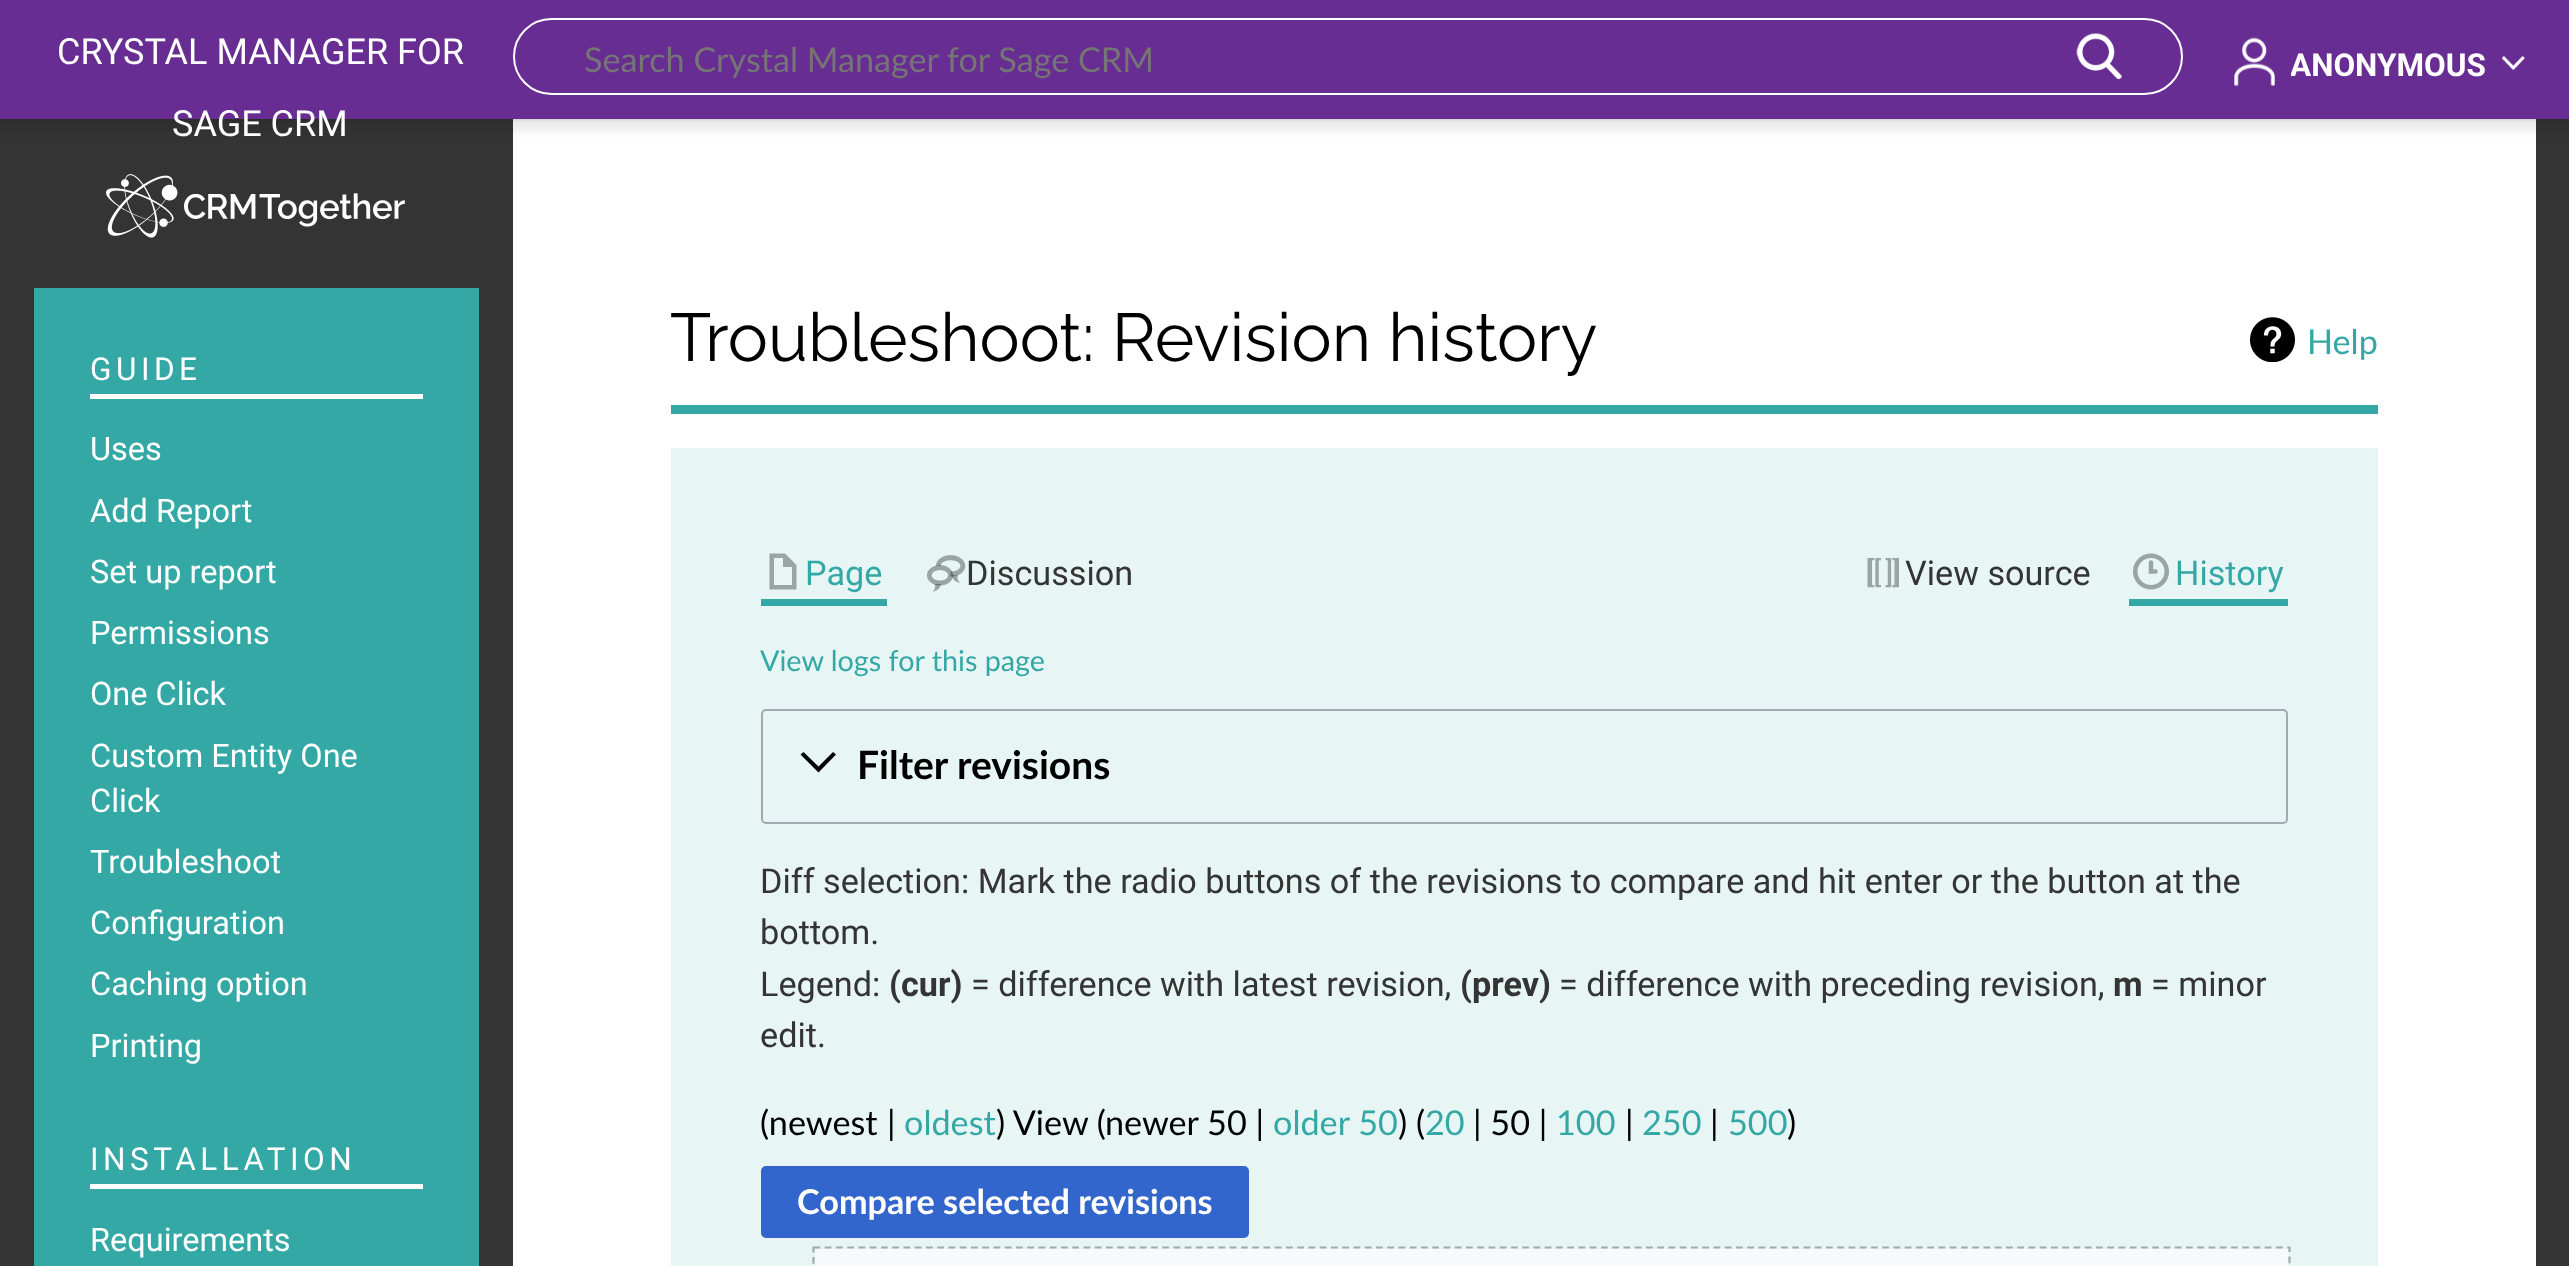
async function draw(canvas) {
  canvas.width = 2569
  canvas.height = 1266
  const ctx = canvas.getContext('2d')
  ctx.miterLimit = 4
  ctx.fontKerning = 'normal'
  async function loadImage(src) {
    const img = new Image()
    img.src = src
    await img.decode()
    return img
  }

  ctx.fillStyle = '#343434'
  ctx.fillRect(0, 0, 2569, 1266)
  ctx.fillStyle = '#fff'
  ctx.fillRect(513, 119, 2023, 1147)
  ctx.fillStyle = '#00000033'
  ctx.filter = 'blur(2px)'
  ctx.beginPath()
  ctx.rect(0, 108, 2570, 11)
  ctx.fill()
  ctx.filter = 'none'
  ctx.fillStyle = '#00000012'
  ctx.filter = 'blur(3.5px)'
  ctx.beginPath()
  ctx.rect(-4, 110, 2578, 21)
  ctx.fill()
  ctx.filter = 'none'
  ctx.fillStyle = '#682d92'
  ctx.fillRect(0, 0, 2569, 119)
  ctx.font = '36px Roboto'
  ctx.fillStyle = '#fff'
  ctx.fillText('CRYSTAL MANAGER FOR', 57, 64)
  ctx.fillText('SAGE CRM', 172, 136)
  ctx.beginPath()
  ctx.roundRect(514, 19, 1668, 75, 37.5)
  ctx.strokeStyle = '#fff'
  ctx.lineWidth = 2
  ctx.stroke()
  ctx.drawImage(await loadImage('image0.png'), 2076, 33, 46, 46)
  ctx.font = '34.2px Lato'
  ctx.fillStyle = '#757575'
  ctx.fillText('Search Crystal Manager for Sage CRM', 584, 72)
  ctx.drawImage(await loadImage('image1.png'), 2076, 33, 46, 46)
  ctx.drawImage(await loadImage('image2.png'), 2234, 37, 41, 49)
  ctx.save()
  ctx.beginPath()
  ctx.rect(2291, 47, 195, 36)
  ctx.clip()
  ctx.font = 'bold 31.5px Roboto'
  ctx.fillStyle = '#fff'
  ctx.fillText('ANONYMOUS', 2290, 76)
  ctx.restore()
  ctx.drawImage(await loadImage('image3.png'), 2502, 56, 23, 14)
  ctx.drawImage(await loadImage('image4.png'), 105, 174, 300, 64)
  ctx.fillStyle = '#33a8a5'
  ctx.fillRect(34, 288, 445, 978)
  ctx.fillStyle = '#fff'
  ctx.fillRect(90, 394, 333, 5)
  ctx.letterSpacing = '4.5px'
  ctx.font = '31.5px Roboto'
  ctx.fillText('GUIDE', 90, 380)
  ctx.letterSpacing = '0px'
  ctx.font = '32.5px Roboto'
  ctx.fillText('Uses', 90, 460)
  ctx.fillText('Add Report', 90, 522)
  ctx.fillText('Set up report', 90, 583)
  ctx.fillText('Permissions', 90, 644)
  ctx.fillText('One Click', 90, 705)
  ctx.fillText('Custom Entity One', 90, 767)
  ctx.fillText('Click', 90, 812)
  ctx.fillText('Troubleshoot', 90, 873)
  ctx.fillText('Configuration', 90, 934)
  ctx.fillText('Caching option', 90, 995)
  ctx.fillText('Printing', 90, 1057)
  ctx.fillRect(90, 1184, 333, 5)
  ctx.letterSpacing = '4.5px'
  ctx.font = '31.5px Roboto'
  ctx.fillText('INSTALLATION', 90, 1170)
  ctx.letterSpacing = '0px'
  ctx.font = '32.5px Roboto'
  ctx.fillText('Requirements', 90, 1251)
  ctx.fillStyle = '#33a8a5'
  ctx.fillRect(671, 405, 1707, 9)
  ctx.font = '67.5px Raleway'
  ctx.fillStyle = '#000'
  ctx.fillText('Troubleshoot: Revision history', 670, 361)
  ctx.drawImage(await loadImage('image5.png'), 2250, 317, 45, 45)
  ctx.font = '34.2px Lato'
  ctx.fillStyle = '#33a8a5'
  ctx.fillText('Help', 2307, 354)
  ctx.fillStyle = '#e7f5f5'
  ctx.fillRect(671, 448, 1707, 818)
  ctx.fillStyle = '#33a8a5'
  ctx.fillRect(761, 599, 126, 7)
  ctx.fillStyle = '#9ba4a4'
  ctx.beginPath()
  ctx.moveTo(769.5, 553.5)
  ctx.lineTo(769.5, 589.5)
  ctx.lineTo(796.5, 589.5)
  ctx.lineTo(796.5, 565)
  ctx.lineTo(785, 553.5)
  ctx.closePath()
  ctx.moveTo(774, 558)
  ctx.lineTo(783, 558)
  ctx.lineTo(783, 567)
  ctx.lineTo(792, 567)
  ctx.lineTo(792, 585)
  ctx.lineTo(774, 585)
  ctx.closePath()
  ctx.fill()
  ctx.font = '34.2px Roboto'
  ctx.fillStyle = '#33a8a5'
  ctx.fillText('Page', 805, 585)
  ctx.drawImage(await loadImage('image6.png'), 927, 555, 39, 37)
  ctx.fillStyle = '#343434'
  ctx.fillText('Discussion', 966, 585)
  ctx.drawImage(await loadImage('image7.png'), 1867, 558, 32, 30)
  ctx.fillText('View source', 1905, 585)
  ctx.fillStyle = '#33a8a5'
  ctx.fillRect(2129, 599, 159, 7)
  ctx.drawImage(await loadImage('image8.png'), 2133, 553, 36, 37)
  ctx.fillText('History', 2175, 585)
  ctx.font = '28.75px Lato'
  ctx.fillText('View logs for this page', 760, 671)
  ctx.beginPath()
  ctx.roundRect(762, 710, 1525, 113, 4)
  ctx.strokeStyle = '#a2a9b1'
  ctx.stroke()
  ctx.fillStyle = '#000'
  ctx.beginPath()
  ctx.moveTo(833, 752)
  ctx.lineTo(818.5, 766.5)
  ctx.lineTo(803.5, 752)
  ctx.lineTo(800.5, 754.5)
  ctx.lineTo(818.5, 772.5)
  ctx.lineTo(836, 754.5)
  ctx.closePath()
  ctx.fill()
  ctx.font = 'bold 39px Lato'
  ctx.fillText('Filter revisions', 857, 779)
  ctx.font = '34.2px Roboto'
  ctx.fillStyle = '#343434'
  ctx.fillText('Diff selection: Mark the radio buttons of the revisions to compare and hit enter or the button at the', 760, 893)
  ctx.fillText('bottom.', 760, 944)
  ctx.fillText('Legend:', 760, 996)
  ctx.font = 'bold 34.2px Roboto'
  ctx.fillText('(cur)', 889, 996)
  ctx.font = '34.2px Roboto'
  ctx.fillText('= difference with latest revision,', 971, 996)
  ctx.font = 'bold 34.2px Roboto'
  ctx.fillText('(prev)', 1460, 996)
  ctx.font = '34.2px Roboto'
  ctx.fillText('= difference with preceding revision,', 1559, 996)
  ctx.font = 'bold 34.2px Roboto'
  ctx.fillText('m', 2113, 996)
  ctx.font = '34.2px Roboto'
  ctx.fillText('= minor', 2151, 996)
  ctx.fillText('edit.', 760, 1047)
  ctx.font = '34.2px Lato'
  ctx.fillStyle = '#000'
  ctx.fillText('(newest', 760, 1135)
  ctx.fillText('|', 887, 1135)
  ctx.fillStyle = '#33a8a5'
  ctx.fillText('oldest', 904, 1135)
  ctx.fillStyle = '#000'
  ctx.fillText(') View (', 996, 1135)
  ctx.fillText('newer 50 |', 1105, 1135)
  ctx.fillStyle = '#33a8a5'
  ctx.fillText('older 50', 1273, 1135)
  ctx.fillStyle = '#000'
  ctx.fillText(') (', 1398, 1135)
  ctx.fillStyle = '#33a8a5'
  ctx.fillText('20', 1425, 1135)
  ctx.fillStyle = '#000'
  ctx.fillText('| 50 |', 1473, 1135)
  ctx.fillStyle = '#33a8a5'
  ctx.fillText('100', 1556, 1135)
  ctx.fillStyle = '#000'
  ctx.fillText('|', 1625, 1135)
  ctx.fillStyle = '#33a8a5'
  ctx.fillText('250', 1642, 1135)
  ctx.fillStyle = '#000'
  ctx.fillText('|', 1710, 1135)
  ctx.fillStyle = '#33a8a5'
  ctx.fillText('500', 1728, 1135)
  ctx.fillStyle = '#000'
  ctx.fillText(')', 1787, 1135)
  ctx.fillStyle = '#36c'
  ctx.beginPath()
  ctx.roundRect(762, 1167, 486, 70, 4)
  ctx.fill()
  ctx.strokeStyle = '#36c'
  ctx.stroke()
  ctx.font = 'bold 34.2px Lato'
  ctx.fillStyle = '#fff'
  ctx.fillText('Compare selected revisions', 797, 1214)
  ctx.fillStyle = '#f8f9fa'
  ctx.fillRect(815, 1249, 1473, 17)
  ctx.beginPath()
  ctx.moveTo(813.5, 1247.5)
  ctx.lineTo(2289.5, 1247.5)
  ctx.lineTo(2289.5, 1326.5)
  ctx.lineTo(813.5, 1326.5)
  ctx.closePath()
  ctx.strokeStyle = '#a2a9b1'
  ctx.lineWidth = 2.2
  ctx.setLineDash([6.75, 4.5])
  ctx.stroke()
}

draw(document.querySelector('canvas'))
